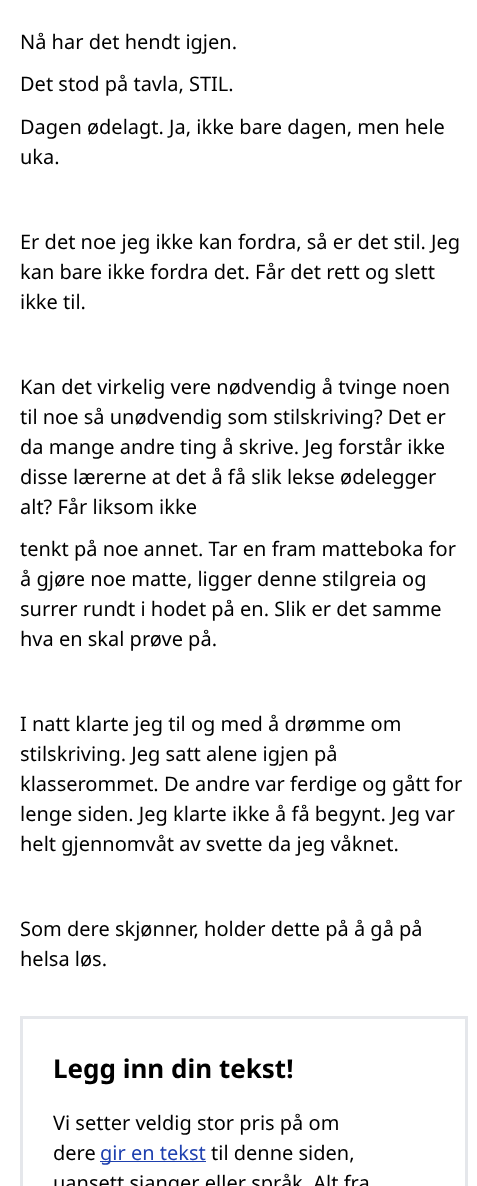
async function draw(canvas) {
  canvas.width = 477
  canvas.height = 1186
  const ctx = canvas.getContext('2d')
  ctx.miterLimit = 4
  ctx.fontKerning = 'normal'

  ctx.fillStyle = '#fff'
  ctx.fillRect(0, 0, 477, 1186)
  ctx.font = '20px Noto Sans'
  ctx.fillStyle = '#000'
  ctx.fillText('Nå har det hendt igjen.', 20, 49)
  ctx.fillText('Det stod på tavla, STIL.', 20, 91)
  ctx.fillText('Dagen ødelagt. Ja, ikke bare dagen, men hele', 20, 134)
  ctx.fillText('uka.', 20, 164)
  ctx.fillText('Er det noe jeg ikke kan fordra, så er det stil. Jeg', 20, 249)
  ctx.fillText('kan bare ikke fordra det. Får det rett og slett', 20, 279)
  ctx.fillText('ikke til.', 20, 309)
  ctx.fillText('Kan det virkelig vere nødvendig å tvinge noen', 20, 394)
  ctx.fillText('til noe så unødvendig som stilskriving? Det er', 20, 424)
  ctx.fillText('da mange andre ting å skrive. Jeg forstår ikke', 20, 454)
  ctx.fillText('disse lærerne at det å få slik lekse ødelegger', 20, 484)
  ctx.fillText('alt? Får liksom ikke', 20, 514)
  ctx.fillText('tenkt på noe annet. Tar en fram matteboka for', 20, 556)
  ctx.fillText('å gjøre noe matte, ligger denne stilgreia og', 20, 586)
  ctx.fillText('surrer rundt i hodet på en. Slik er det samme', 20, 616)
  ctx.fillText('hva en skal prøve på.', 20, 646)
  ctx.fillText('I natt klarte jeg til og med å drømme om', 20, 731)
  ctx.fillText('stilskriving. Jeg satt alene igjen på', 20, 761)
  ctx.fillText('klasserommet. De andre var ferdige og gått for', 20, 791)
  ctx.fillText('lenge siden. Jeg klarte ikke å få begynt. Jeg var', 20, 821)
  ctx.fillText('helt gjennomvåt av svette da jeg våknet.', 20, 851)
  ctx.fillText('Som dere skjønner, holder dette på å gå på', 20, 936)
  ctx.fillText('helsa løs.', 20, 966)
  ctx.strokeStyle = '#e5e7eb'
  ctx.lineWidth = 3
  ctx.strokeRect(21.5, 1017.5, 445, 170)
  ctx.font = 'bold 26px Noto Sans'
  ctx.fillText('Legg inn din tekst!', 53, 1078)
  ctx.font = '20px Noto Sans'
  ctx.fillText('Vi setter veldig stor pris på om', 53, 1130)
  ctx.fillText('dere', 53, 1160)
  ctx.fillStyle = '#1e40af'
  ctx.fillRect(100, 1161, 106, 1)
  ctx.fillText('gir en tekst', 100, 1160)
  ctx.fillStyle = '#000'
  ctx.fillText('til denne siden,', 211, 1160)
  ctx.fillText('uansett sjanger eller språk. Alt fra', 53, 1190)
}

draw(document.querySelector('canvas'))
